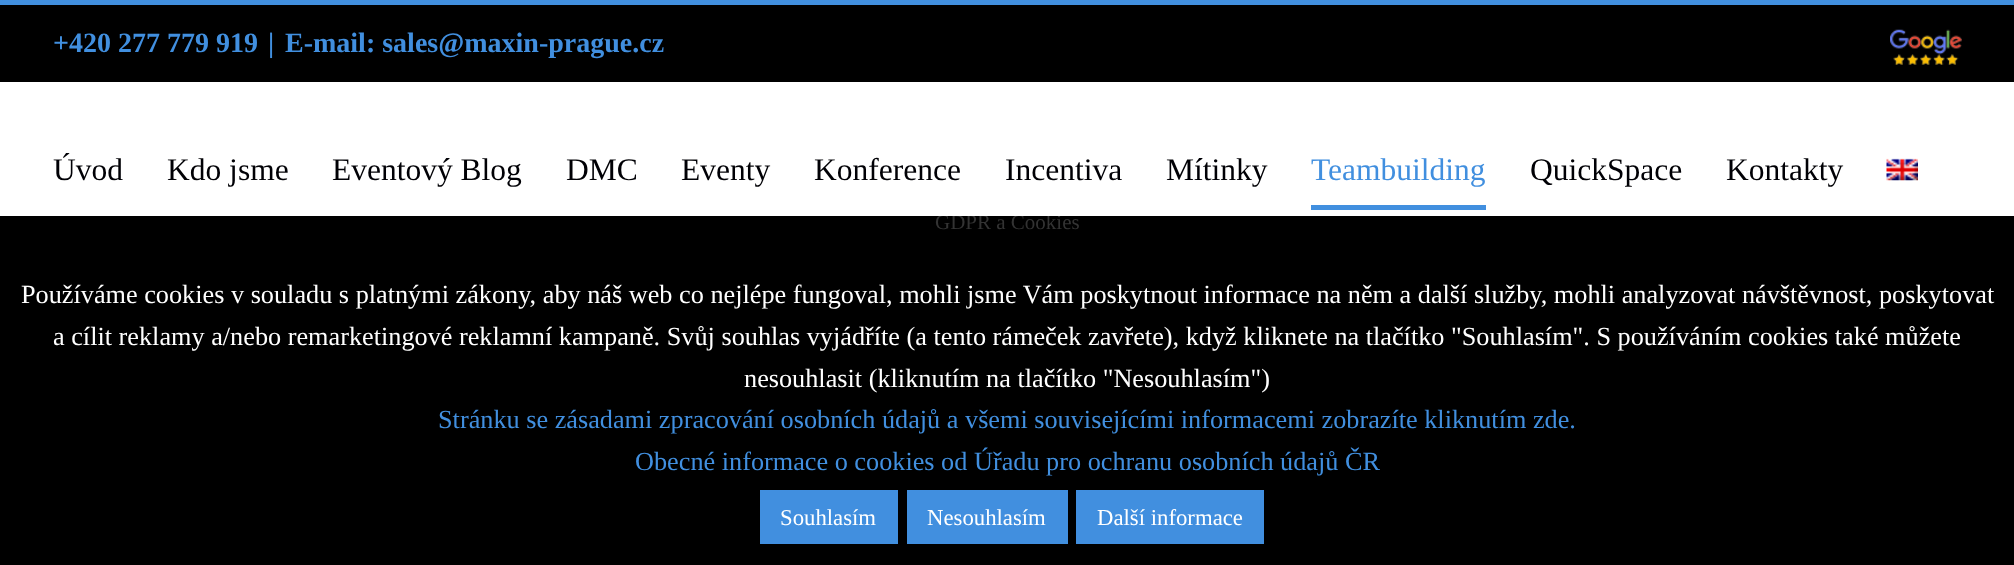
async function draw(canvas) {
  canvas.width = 2014
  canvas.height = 565
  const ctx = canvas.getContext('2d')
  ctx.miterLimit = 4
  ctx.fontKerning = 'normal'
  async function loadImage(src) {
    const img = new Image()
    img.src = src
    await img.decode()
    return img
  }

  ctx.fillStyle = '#000'
  ctx.fillRect(0, 0, 2014, 565)
  ctx.fillStyle = '#418fdf'
  ctx.fillRect(0, 0, 2014, 5)
  ctx.font = '21px Liberation Serif'
  ctx.fillStyle = '#333'
  ctx.fillText('GDPR a Cookies', 935, 229)
  ctx.fillStyle = '#fff'
  ctx.fillRect(0, 82, 2014, 134)
  ctx.font = 'bold 28px Liberation Serif'
  ctx.fillStyle = '#418fdf'
  ctx.fillText('+420 277 779 919', 53, 52)
  ctx.fillText('|', 268, 52)
  ctx.fillText('E-mail: sales@maxin-prague.cz', 285, 52)
  ctx.drawImage(await loadImage('image0.png'), 1890, 29, 72, 36)
  ctx.font = '31.5px Liberation Serif'
  ctx.fillStyle = '#000005'
  ctx.fillText('Úvod', 53, 180)
  ctx.fillText('Kdo jsme', 167, 180)
  ctx.fillText('Eventový Blog', 332, 180)
  ctx.fillText('DMC', 566, 180)
  ctx.fillText('Eventy', 681, 180)
  ctx.fillText('Konference', 814, 180)
  ctx.fillText('Incentiva', 1005, 180)
  ctx.fillText('Mítinky', 1166, 180)
  ctx.fillStyle = '#418fdf'
  ctx.fillText('Teambuilding', 1311, 180)
  ctx.fillRect(1311, 205, 175, 5)
  ctx.fillStyle = '#000005'
  ctx.fillText('QuickSpace', 1530, 180)
  ctx.fillText('Kontakty', 1726, 180)
  ctx.drawImage(await loadImage('image1.png'), 1886, 158, 32, 23)
  ctx.font = '26.25px Liberation Serif'
  ctx.fillStyle = '#fff'
  ctx.fillText('Používáme cookies v souladu s platnými zákony, aby náš web co nejlépe fungoval, mohli jsme Vám poskytnout informace na něm a další služby, mohli analyzovat návštěvnost, poskytovat', 21, 303)
  ctx.fillText('a cílit reklamy a/nebo remarketingové reklamní kampaně. Svůj souhlas vyjádříte (a tento rámeček zavřete), když kliknete na tlačítko "Souhlasím". S používáním cookies také můžete', 53, 345)
  ctx.fillText('nesouhlasit (kliknutím na tlačítko "Nesouhlasím")', 744, 387)
  ctx.fillStyle = '#418fdf'
  ctx.fillText('Stránku se zásadami zpracování osobních údajů a všemi souvisejícími informacemi zobrazíte kliknutím zde.', 438, 428)
  ctx.fillText('Obecné informace o cookies od Úřadu pro ochranu osobních údajů ČR', 635, 470)
  ctx.fillRect(760, 490, 138, 54)
  ctx.font = '22.75px Liberation Serif'
  ctx.fillStyle = '#fff'
  ctx.fillText('Souhlasím', 780, 525)
  ctx.fillStyle = '#418fdf'
  ctx.fillRect(907, 490, 161, 54)
  ctx.fillStyle = '#fff'
  ctx.fillText('Nesouhlasím', 927, 525)
  ctx.fillStyle = '#418fdf'
  ctx.fillRect(1076, 490, 188, 54)
  ctx.fillStyle = '#fff'
  ctx.fillText('Další informace', 1097, 525)
}

draw(document.querySelector('canvas'))
